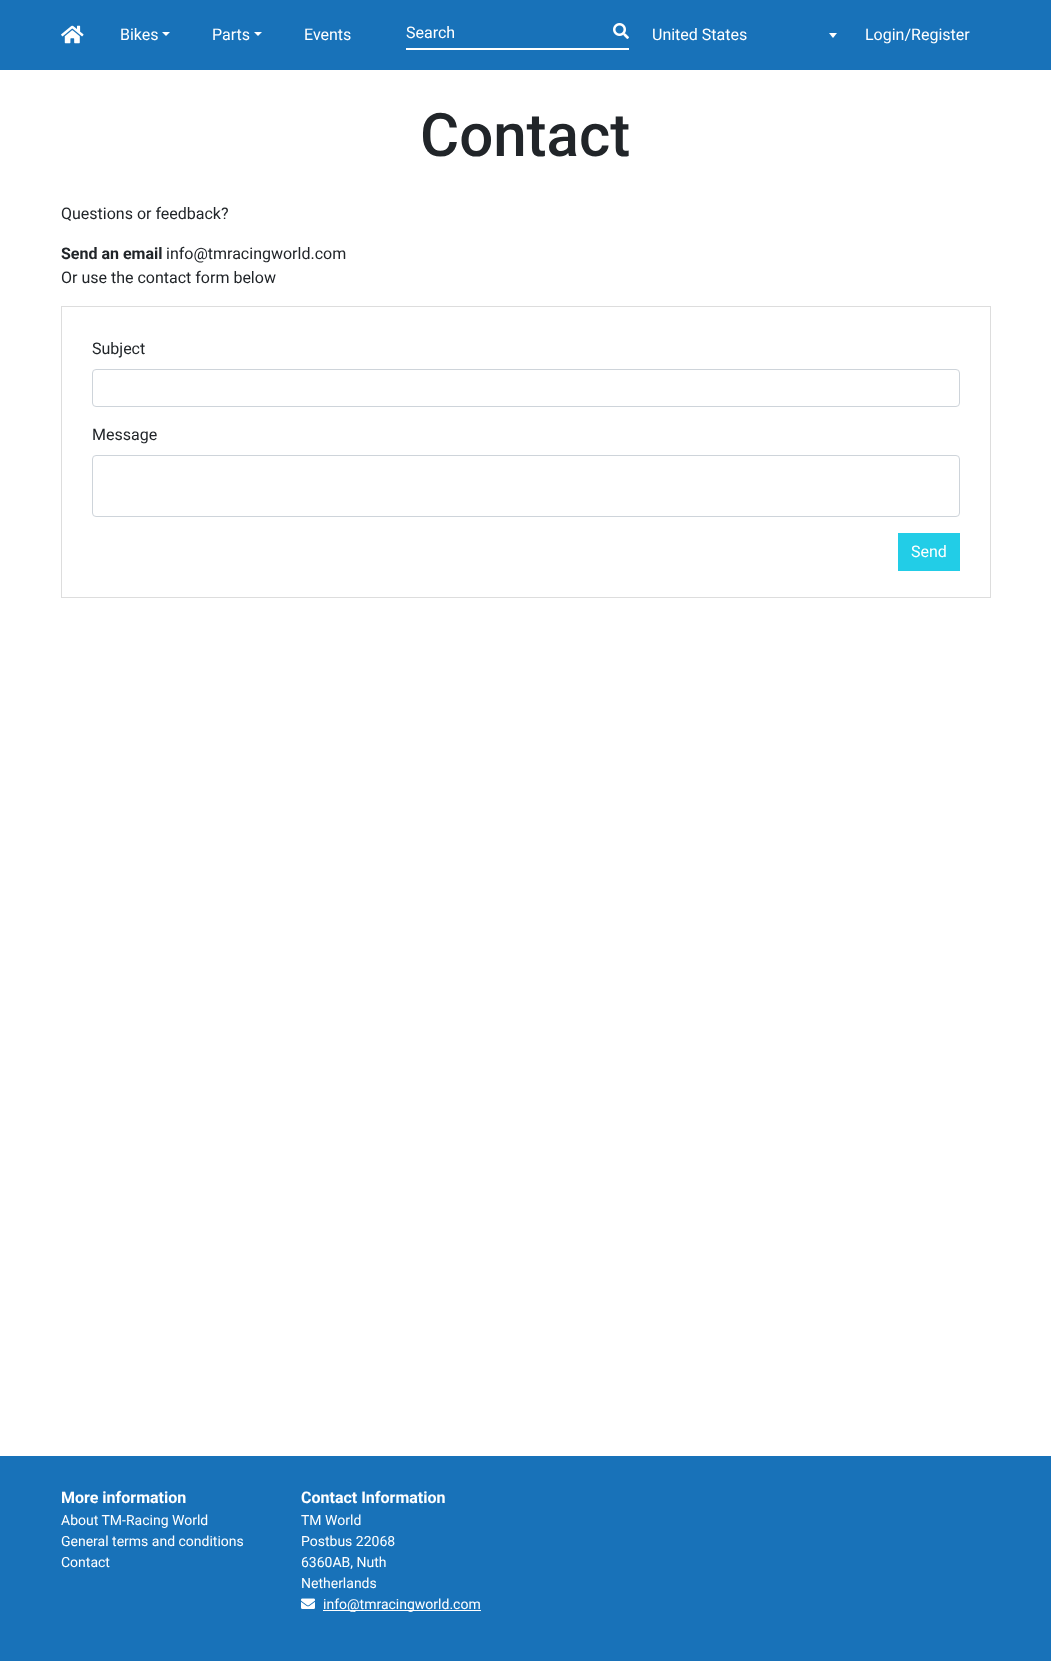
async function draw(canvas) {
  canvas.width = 1051
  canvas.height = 1661
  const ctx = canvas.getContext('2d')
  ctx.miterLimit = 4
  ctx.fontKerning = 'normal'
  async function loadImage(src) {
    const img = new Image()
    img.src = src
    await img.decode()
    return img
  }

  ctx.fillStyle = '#fff'
  ctx.fillRect(0, 0, 1051, 1661)
  ctx.fillStyle = '#1872b9'
  ctx.fillRect(0, 0, 1051, 70)
  ctx.drawImage(await loadImage('image0.png'), 61, 25, 23, 19)
  ctx.font = '16px Roboto'
  ctx.fillStyle = '#fff'
  ctx.fillText('Bikes', 120, 40)
  ctx.beginPath()
  ctx.moveTo(162, 32)
  ctx.lineTo(170, 32)
  ctx.lineTo(166, 36)
  ctx.closePath()
  ctx.fill()
  ctx.fillText('Parts', 212, 40)
  ctx.beginPath()
  ctx.moveTo(254, 32)
  ctx.lineTo(262, 32)
  ctx.lineTo(258, 36)
  ctx.closePath()
  ctx.fill()
  ctx.fillText('Events', 304, 40)
  ctx.fillRect(406, 48, 223, 2)
  ctx.fillText('Search', 406, 38)
  ctx.drawImage(await loadImage('image1.png'), 613, 23, 16, 16)
  ctx.fillText('United States', 652, 40)
  ctx.beginPath()
  ctx.moveTo(829, 33)
  ctx.lineTo(837, 33)
  ctx.lineTo(833, 38)
  ctx.closePath()
  ctx.fill()
  ctx.fillText('Login/Register', 865, 40)
  ctx.font = '500 60px Roboto'
  ctx.fillStyle = '#212529'
  ctx.fillText('Contact', 420, 156)
  ctx.font = '16px Roboto'
  ctx.fillText('Questions or feedback?', 61, 219)
  ctx.font = 'bold 16px Roboto'
  ctx.fillText('Send an email', 61, 259)
  ctx.font = '16px Roboto'
  ctx.fillText('info@tmracingworld.com', 166, 259)
  ctx.fillText('Or use the contact form below', 61, 283)
  ctx.strokeStyle = '#ddd'
  ctx.strokeRect(61.5, 306.5, 929, 291)
  ctx.fillText('Subject', 92, 354)
  ctx.beginPath()
  ctx.roundRect(92.5, 369.5, 867, 37, 3.5)
  ctx.strokeStyle = '#ced4da'
  ctx.stroke()
  ctx.fillText('Message', 92, 440)
  ctx.beginPath()
  ctx.roundRect(92.5, 455.5, 867, 61, 3.5)
  ctx.stroke()
  ctx.fillStyle = '#22cde7'
  ctx.fillRect(898, 533, 62, 38)
  ctx.fillStyle = '#fff'
  ctx.fillText('Send', 911, 557)
  ctx.fillStyle = '#1872b9'
  ctx.fillRect(0, 1456, 1051, 205)
  ctx.font = 'bold 16px Roboto'
  ctx.fillStyle = '#fff'
  ctx.fillText('More information', 61, 1503)
  ctx.font = '14px Roboto'
  ctx.fillText('About TM-Racing World', 61, 1525)
  ctx.fillText('General terms and conditions', 61, 1546)
  ctx.fillText('Contact', 61, 1567)
  ctx.font = 'bold 16px Roboto'
  ctx.fillText('Contact Information', 301, 1503)
  ctx.font = '14px Roboto'
  ctx.fillText('TM World', 301, 1525)
  ctx.fillText('Postbus 22068', 301, 1546)
  ctx.fillText('6360AB, Nuth', 301, 1567)
  ctx.fillText('Netherlands', 301, 1588)
  ctx.drawImage(await loadImage('image2.png'), 301, 1598, 14, 11)
  ctx.fillRect(323, 1610, 158, 1)
  ctx.fillText('info@tmracingworld.com', 323, 1609)
}

draw(document.querySelector('canvas'))
